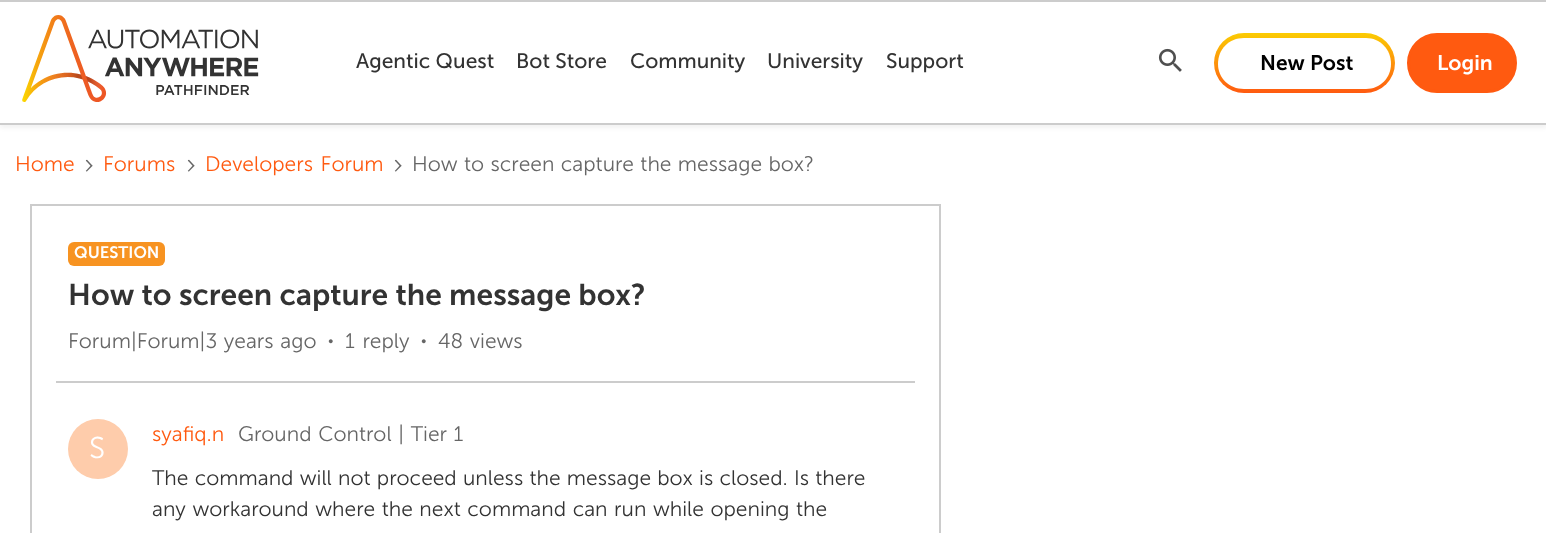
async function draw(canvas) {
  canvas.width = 1546
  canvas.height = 533
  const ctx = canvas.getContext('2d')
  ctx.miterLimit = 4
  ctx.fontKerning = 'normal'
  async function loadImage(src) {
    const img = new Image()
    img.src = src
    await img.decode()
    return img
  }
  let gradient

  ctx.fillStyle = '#fff'
  ctx.fillRect(0, 0, 1546, 533)
  ctx.fillStyle = '#0000000d'
  ctx.filter = 'blur(2px)'
  ctx.beginPath()
  ctx.rect(0, 3, 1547, 125)
  ctx.fill()
  ctx.filter = 'none'
  ctx.fillStyle = '#fff'
  ctx.fillRect(0, 2, 1546, 121)
  ctx.drawImage(await loadImage('image0.png'), 22, 15, 237, 87)
  ctx.font = '21px Museo Sans'
  ctx.fillStyle = '#333'
  ctx.fillText('Agentic Quest', 356, 68)
  ctx.fillText('Bot Store', 516, 68)
  ctx.fillText('Community', 630, 68)
  ctx.fillText('University', 767, 68)
  ctx.fillText('Support', 886, 68)
  ctx.fillStyle = '#ccc'
  ctx.fillRect(0, 0, 1546, 2)
  ctx.fillRect(0, 123, 1546, 2)
  ctx.drawImage(await loadImage('image1.png'), 1158, 48, 24, 24)
  gradient = ctx.createLinearGradient(1304, 33, 1304, 93)
  gradient.addColorStop(0, '#fbcc03')
  gradient.addColorStop(1, '#ff5a10')
  ctx.fillStyle = gradient
  ctx.beginPath()
  ctx.roundRect(1214, 33, 181, 60, 30)
  ctx.fill()
  ctx.fillStyle = '#fff'
  ctx.beginPath()
  ctx.moveTo(1244, 38)
  ctx.bezierCurveTo(1229, 38, 1218, 49, 1218, 64)
  ctx.bezierCurveTo(1218, 78, 1229, 89, 1244, 89)
  ctx.lineTo(1366, 89)
  ctx.bezierCurveTo(1380, 89, 1391, 78, 1391, 64)
  ctx.bezierCurveTo(1391, 49, 1380, 38, 1366, 38)
  ctx.closePath()
  ctx.fill()
  ctx.font = '600 21px Museo Sans'
  ctx.fillStyle = '#000'
  ctx.fillText('New Post', 1260, 70)
  ctx.fillStyle = '#ff5a10'
  ctx.beginPath()
  ctx.roundRect(1408.5, 34.5, 107, 57, 28.5)
  ctx.fill()
  ctx.strokeStyle = '#ff5a10'
  ctx.lineWidth = 3
  ctx.stroke()
  ctx.fillStyle = '#fff'
  ctx.fillText('Login', 1437, 70)
  ctx.font = '300 21px Museo Sans'
  ctx.fillStyle = '#ff5a10'
  ctx.fillText('Home', 15, 171)
  ctx.drawImage(await loadImage('image2.png'), 85, 159, 8, 13)
  ctx.fillText('Forums', 103, 171)
  ctx.drawImage(await loadImage('image2.png'), 187, 159, 8, 13)
  ctx.wordSpacing = '2px'
  ctx.fillText('Developers Forum', 205, 171)
  ctx.drawImage(await loadImage('image2.png'), 394, 159, 8, 13)
  ctx.wordSpacing = '0.75px'
  ctx.fillStyle = '#666'
  ctx.fillText('How to screen capture the message box?', 412, 171)
  ctx.strokeStyle = '#ccc'
  ctx.lineWidth = 2
  ctx.strokeRect(31, 205, 909, 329)
  ctx.fillStyle = '#f79321'
  ctx.beginPath()
  ctx.roundRect(68, 242, 97, 24, 6)
  ctx.fill()
  ctx.wordSpacing = '0px'
  ctx.font = '600 16.5px Museo Sans'
  ctx.fillStyle = '#fff'
  ctx.fillText('QUESTION', 74, 258)
  ctx.font = '600 30px Museo Sans'
  ctx.fillStyle = '#333'
  ctx.fillText('How to screen capture the message box?', 68, 305)
  ctx.wordSpacing = '1px'
  ctx.font = '300 21px Museo Sans'
  ctx.fillStyle = '#666'
  ctx.fillText('Forum|Forum|3 years ago', 68, 348)
  ctx.drawImage(await loadImage('image3.png'), 328, 339, 5, 5)
  ctx.wordSpacing = '2px'
  ctx.fillText('1 reply', 345, 348)
  ctx.drawImage(await loadImage('image3.png'), 421, 339, 5, 5)
  ctx.wordSpacing = '1px'
  ctx.fillText('48 views', 438, 348)
  ctx.fillStyle = '#ccc'
  ctx.fillRect(56, 381, 859, 2)
  ctx.fillStyle = '#feccab'
  ctx.beginPath()
  ctx.arc(98, 449, 30, 0, 2 * Math.PI)
  ctx.fill()
  ctx.wordSpacing = '0px'
  ctx.font = '300 30px Museo Sans'
  ctx.fillStyle = '#fff'
  ctx.fillText('S', 89, 458)
  ctx.font = '300 21px Museo Sans'
  ctx.fillStyle = '#ff5a10'
  ctx.fillText('syafiq.n', 152, 441)
  ctx.wordSpacing = '1px'
  ctx.fillStyle = '#666'
  ctx.fillText('Ground Control | Tier 1', 238, 441)
  ctx.wordSpacing = '0.6px'
  ctx.fillStyle = '#333'
  ctx.fillText('The command will not proceed unless the message box is closed. Is there', 152, 485)
  ctx.wordSpacing = '0.9px'
  ctx.fillText('any workaround where the next command can run while opening the', 152, 516)
}

draw(document.querySelector('canvas'))
